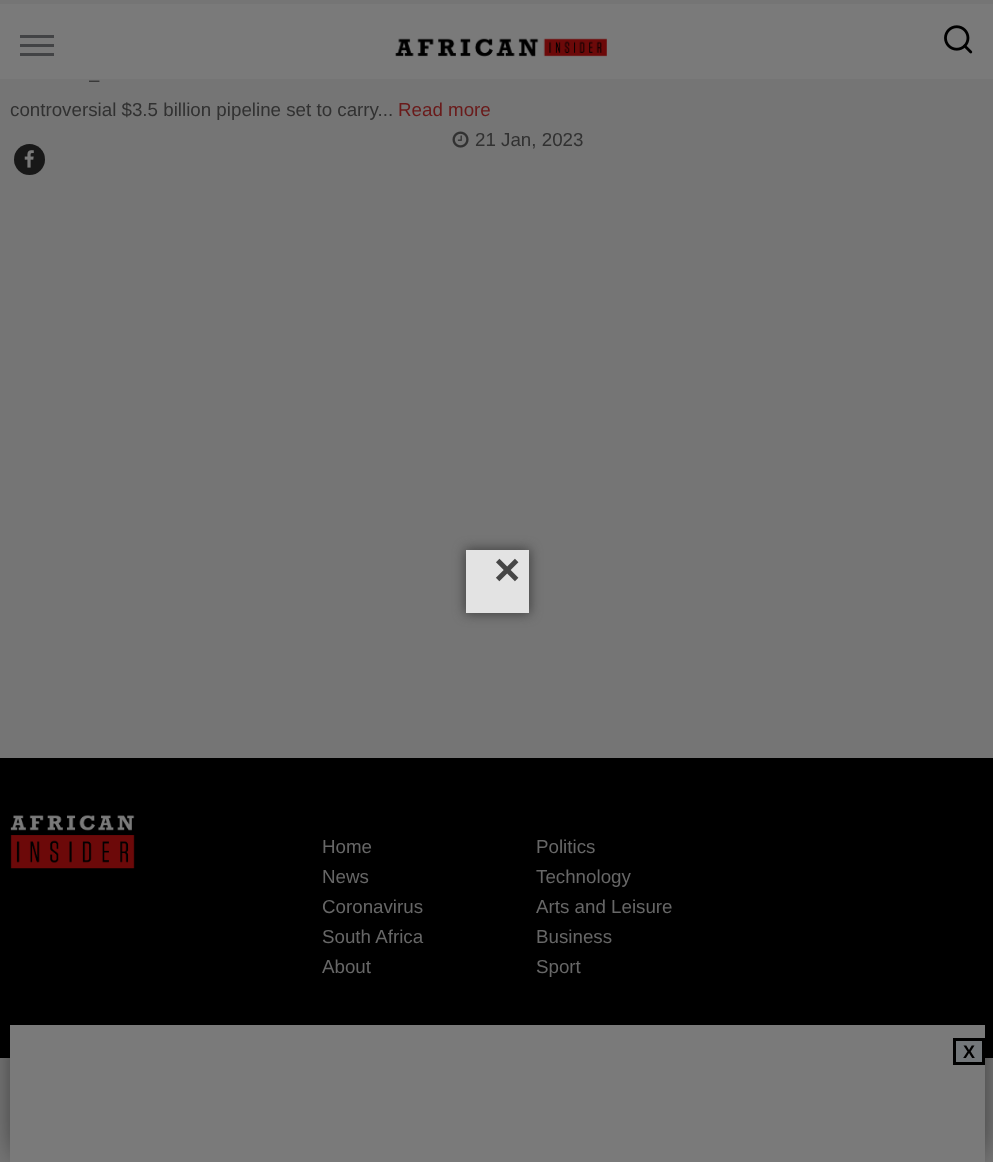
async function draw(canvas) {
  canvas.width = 993
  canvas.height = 1162
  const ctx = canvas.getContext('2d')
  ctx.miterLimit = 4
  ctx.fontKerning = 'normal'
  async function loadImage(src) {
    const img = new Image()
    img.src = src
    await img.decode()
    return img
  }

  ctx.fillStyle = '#757575'
  ctx.fillRect(0, 0, 993, 1162)
  ctx.fillStyle = '#7a7a7a'
  ctx.fillRect(0, 4, 993, 75)
  ctx.fillStyle = '#424345'
  ctx.fillRect(20, 35, 34, 3)
  ctx.fillRect(20, 44, 34, 3)
  ctx.fillRect(20, 53, 34, 3)
  ctx.drawImage(await loadImage('image0.png'), 395, 38, 212, 19)
  ctx.drawImage(await loadImage('image1.png'), 944, 25, 29, 29)
  ctx.font = '18.75px Liberation Sans'
  ctx.fillStyle = '#313131'
  ctx.fillText('–', 89, 86)
  ctx.fillText('controversial $3.5 billion pipeline set to carry...', 10, 116)
  ctx.fillStyle = '#6a1a1a'
  ctx.fillText('Read more', 398, 116)
  ctx.drawImage(await loadImage('image2.png'), 452, 131, 17, 17)
  ctx.fillStyle = '#313131'
  ctx.fillText('21 Jan, 2023', 475, 146)
  ctx.fillStyle = '#181818'
  ctx.beginPath()
  ctx.arc(29.5, 159.5, 15.5, 0, 2 * Math.PI)
  ctx.fill()
  ctx.drawImage(await loadImage('image3.png'), 24, 150, 10, 18)
  ctx.fillStyle = '#000'
  ctx.fillRect(0, 758, 993, 300)
  ctx.drawImage(await loadImage('image4.png'), 10, 815, 125, 54)
  ctx.fillStyle = '#676767'
  ctx.fillText('Home', 322, 853)
  ctx.fillText('News', 322, 883)
  ctx.fillText('Coronavirus', 322, 913)
  ctx.fillText('South Africa', 322, 943)
  ctx.fillText('About', 322, 973)
  ctx.fillText('Politics', 536, 853)
  ctx.fillText('Technology', 536, 883)
  ctx.fillText('Arts and Leisure', 536, 913)
  ctx.fillText('Business', 536, 943)
  ctx.fillText('Sport', 536, 973)
  ctx.fillStyle = '#404040'
  ctx.filter = 'blur(6px)'
  ctx.beginPath()
  ctx.rect(465, 549, 65, 65)
  ctx.fill()
  ctx.filter = 'none'
  ctx.fillStyle = '#e3e3e3'
  ctx.fillRect(466, 550, 63, 63)
  ctx.font = 'bold 45px Liberation Sans'
  ctx.fillStyle = '#464646'
  ctx.fillText('×', 494, 585)
  ctx.fillStyle = '#000000bf'
  ctx.filter = 'blur(15px)'
  ctx.beginPath()
  ctx.rect(18, 1030, 960, 123)
  ctx.fill()
  ctx.filter = 'none'
  ctx.fillStyle = '#7a7a7a'
  ctx.fillRect(10, 1025, 975, 137)
  ctx.fillStyle = '#73777a'
  ctx.beginPath()
  ctx.rect(954.5, 1039.5, 29, 24)
  ctx.fill()
  ctx.strokeStyle = '#000'
  ctx.lineWidth = 3
  ctx.stroke()
  ctx.font = 'bold 18px Liberation Sans'
  ctx.fillStyle = '#000'
  ctx.fillText('X', 963, 1058)
}

draw(document.querySelector('canvas'))
